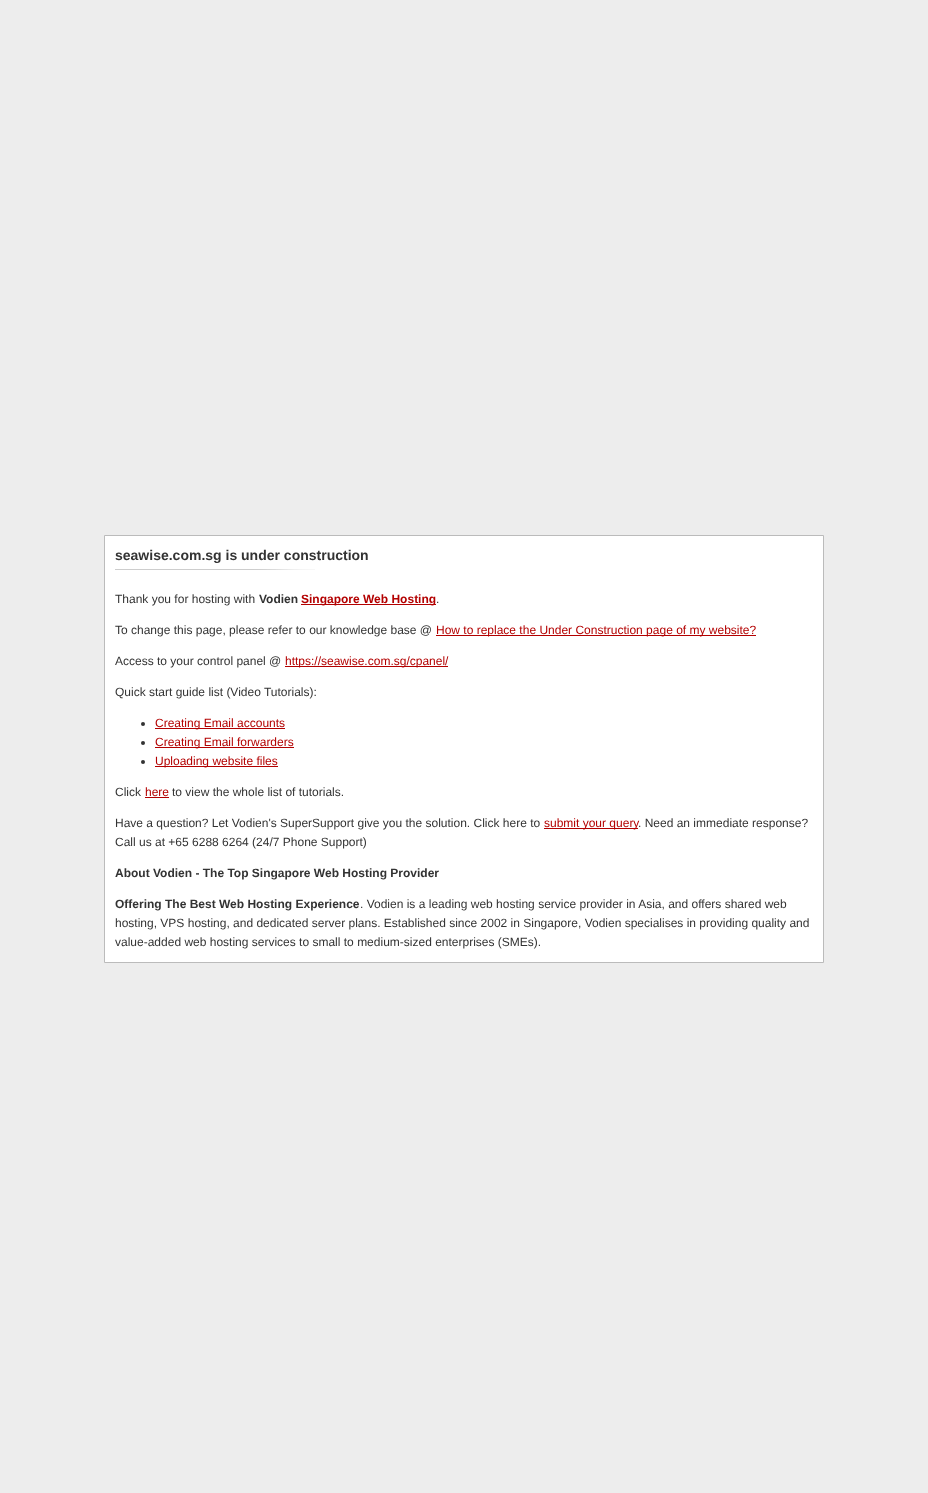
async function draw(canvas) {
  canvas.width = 928
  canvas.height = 1493
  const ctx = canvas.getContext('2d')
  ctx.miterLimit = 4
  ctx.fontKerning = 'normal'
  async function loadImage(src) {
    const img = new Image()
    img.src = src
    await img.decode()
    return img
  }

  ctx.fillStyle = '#ededed'
  ctx.fillRect(0, 0, 928, 1493)
  ctx.fillStyle = '#fff'
  ctx.beginPath()
  ctx.rect(104.5, 535.5, 719, 427)
  ctx.fill()
  ctx.strokeStyle = '#bbb'
  ctx.stroke()
  ctx.font = 'bold 14px Liberation Sans'
  ctx.fillStyle = '#333'
  ctx.fillText('seawise.com.sg is under construction', 115, 560)
  ctx.drawImage(await loadImage('image0.png'), 115, 569, 200, 1)
  ctx.font = '12px Liberation Sans'
  ctx.fillText('Thank you for hosting with', 115, 603)
  ctx.font = 'bold 12px Liberation Sans'
  ctx.fillText('Vodien', 259, 603)
  ctx.fillStyle = '#b30000'
  ctx.fillRect(301, 604, 135, 1)
  ctx.fillText('Singapore Web Hosting', 301, 603)
  ctx.font = '12px Liberation Sans'
  ctx.fillStyle = '#333'
  ctx.fillText('.', 436, 603)
  ctx.fillText('To change this page, please refer to our knowledge base @', 115, 634)
  ctx.fillStyle = '#b30000'
  ctx.fillRect(436, 635, 320, 1)
  ctx.fillText('How to replace the Under Construction page of my website?', 436, 634)
  ctx.fillStyle = '#333'
  ctx.fillText('Access to your control panel @', 115, 665)
  ctx.fillStyle = '#b30000'
  ctx.fillRect(285, 666, 163, 1)
  ctx.fillText('https://seawise.com.sg/cpanel/', 285, 665)
  ctx.fillStyle = '#333'
  ctx.fillText('Quick start guide list (Video Tutorials):', 115, 696)
  ctx.beginPath()
  ctx.arc(143, 724, 2, 0, 2 * Math.PI)
  ctx.fill()
  ctx.fillStyle = '#b30000'
  ctx.fillRect(155, 728, 130, 1)
  ctx.fillText('Creating Email accounts', 155, 727)
  ctx.fillStyle = '#333'
  ctx.beginPath()
  ctx.arc(143, 743, 2, 0, 2 * Math.PI)
  ctx.fill()
  ctx.fillStyle = '#b30000'
  ctx.fillRect(155, 747, 139, 1)
  ctx.fillText('Creating Email forwarders', 155, 746)
  ctx.fillStyle = '#333'
  ctx.beginPath()
  ctx.arc(143, 762, 2, 0, 2 * Math.PI)
  ctx.fill()
  ctx.fillStyle = '#b30000'
  ctx.fillRect(155, 766, 123, 1)
  ctx.fillText('Uploading website files', 155, 765)
  ctx.fillStyle = '#333'
  ctx.fillText('Click', 115, 796)
  ctx.fillStyle = '#b30000'
  ctx.fillText('here', 145, 796)
  ctx.fillRect(145, 797, 24, 1)
  ctx.fillStyle = '#333'
  ctx.fillText('to view the whole list of tutorials.', 172, 796)
  ctx.fillText('Have a question? Let Vodien\'s SuperSupport give you the solution. Click here to', 115, 827)
  ctx.fillStyle = '#b30000'
  ctx.fillRect(544, 828, 94, 1)
  ctx.fillText('submit your query', 544, 827)
  ctx.fillStyle = '#333'
  ctx.fillText('. Need an immediate response?', 638, 827)
  ctx.fillText('Call us at +65 6288 6264 (24/7 Phone Support)', 115, 846)
  ctx.font = 'bold 12px Liberation Sans'
  ctx.fillText('About Vodien - The Top Singapore Web Hosting Provider', 115, 877)
  ctx.fillText('Offering The Best Web Hosting Experience', 115, 908)
  ctx.font = '12px Liberation Sans'
  ctx.fillText('. Vodien is a leading web hosting service provider in Asia, and offers shared web', 360, 908)
  ctx.fillText('hosting, VPS hosting, and dedicated server plans. Established since 2002 in Singapore, Vodien specialises in providing quality and', 115, 927)
  ctx.fillText('value-added web hosting services to small to medium-sized enterprises (SMEs).', 115, 946)
}

draw(document.querySelector('canvas'))
